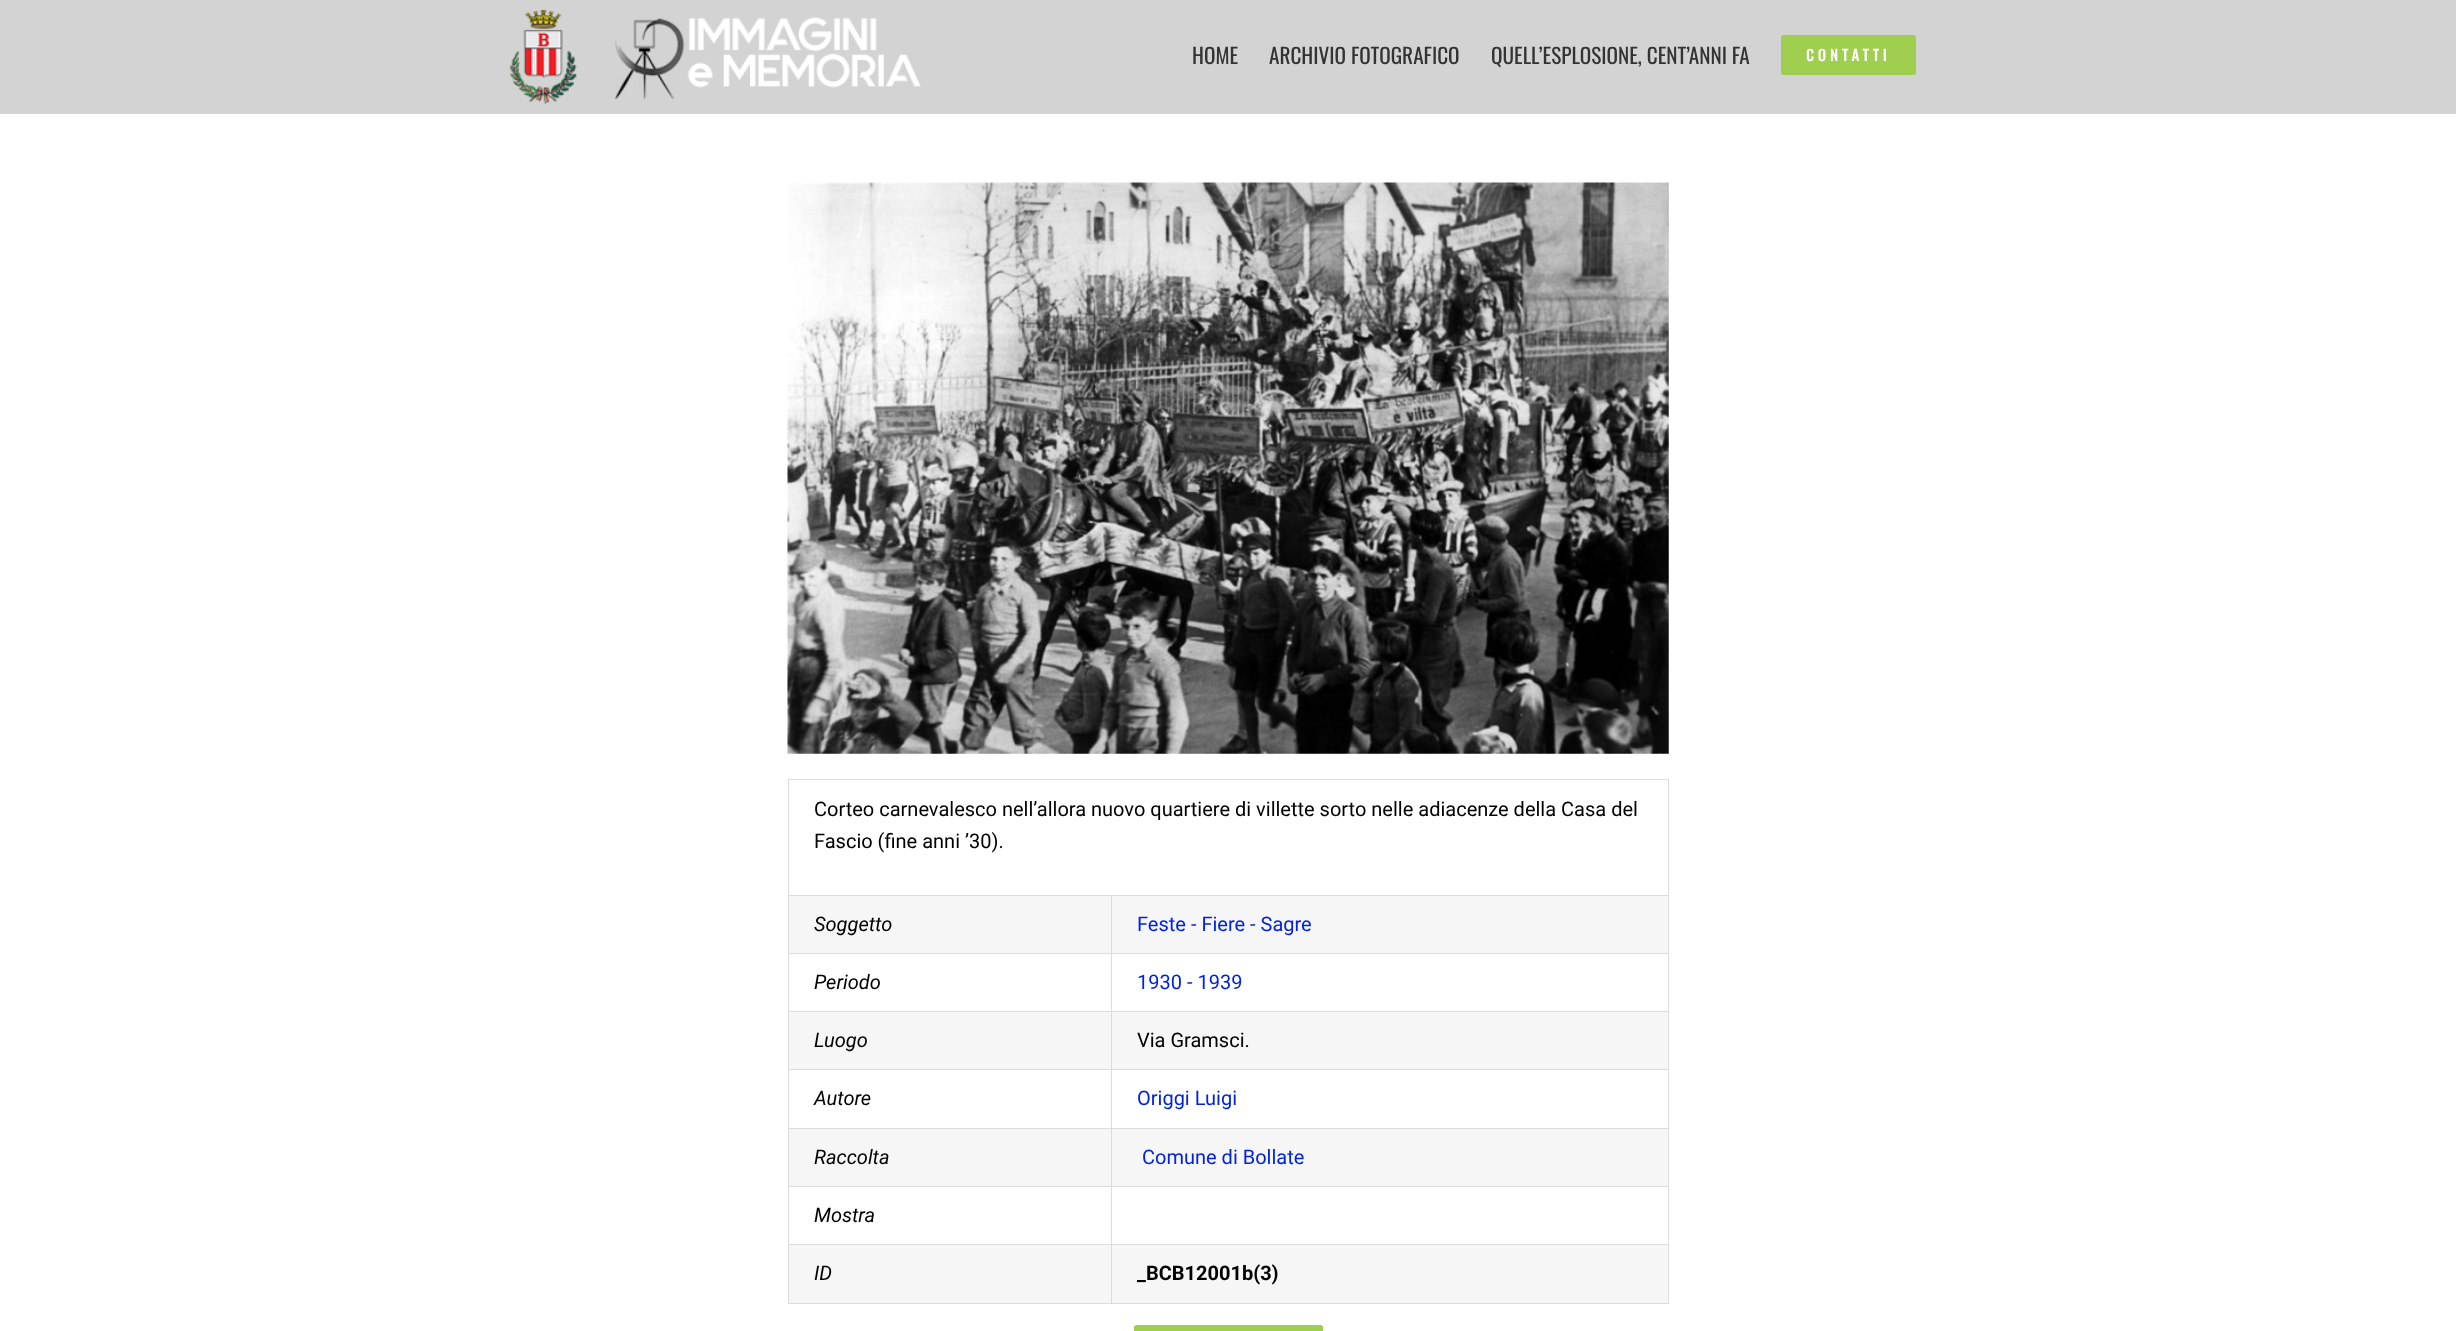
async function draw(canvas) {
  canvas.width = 2456
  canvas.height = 1331
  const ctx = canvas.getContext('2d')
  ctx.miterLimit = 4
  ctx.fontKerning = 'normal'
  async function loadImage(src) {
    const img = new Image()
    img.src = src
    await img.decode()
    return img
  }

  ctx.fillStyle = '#fff'
  ctx.fillRect(0, 0, 2456, 1331)
  ctx.fillStyle = '#d3d3d3'
  ctx.fillRect(0, 0, 2456, 114)
  ctx.drawImage(await loadImage('image0.png'), 509, 10, 412, 94)
  ctx.font = '21.25px Oswald'
  ctx.fillStyle = '#333'
  ctx.fillText('HOME', 1192, 64)
  ctx.fillText('ARCHIVIO FOTOGRAFICO', 1269, 64)
  ctx.fillText('QUELL’ESPLOSIONE, CENT’ANNI FA', 1491, 64)
  ctx.fillStyle = '#a0ce4e'
  ctx.beginPath()
  ctx.roundRect(1781, 35, 135, 40, 2.5)
  ctx.fill()
  ctx.letterSpacing = '3.75px'
  ctx.font = '500 15px Oswald'
  ctx.fillStyle = '#fff'
  ctx.fillText('CONTATTI', 1806, 61)
  ctx.drawImage(await loadImage('image1.png'), 787, 182, 882, 572)
  ctx.fillStyle = '#dcdcdc'
  ctx.fillRect(788, 779, 881, 1)
  ctx.fillRect(1668, 779, 1, 525)
  ctx.fillRect(788, 1303, 881, 1)
  ctx.fillRect(788, 779, 1, 525)
  ctx.letterSpacing = '0px'
  ctx.font = '20px Roboto'
  ctx.fillStyle = '#000'
  ctx.fillText('Corteo carnevalesco nell’allora nuovo quartiere di villette sorto nelle adiacenze della Casa del', 814, 816)
  ctx.fillText('Fascio (fine anni ’30).', 814, 848)
  ctx.fillStyle = '#f6f6f6'
  ctx.fillRect(789, 896, 879, 57)
  ctx.fillStyle = '#dcdcdc'
  ctx.fillRect(1111, 895, 558, 1)
  ctx.fillRect(1111, 953, 558, 1)
  ctx.fillStyle = '#f6f6f6'
  ctx.fillRect(789, 1012, 879, 57)
  ctx.fillStyle = '#dcdcdc'
  ctx.fillRect(1111, 1011, 558, 1)
  ctx.fillRect(1111, 1069, 558, 1)
  ctx.fillRect(1111, 1128, 558, 1)
  ctx.fillStyle = '#f6f6f6'
  ctx.fillRect(789, 1129, 879, 57)
  ctx.fillStyle = '#dcdcdc'
  ctx.fillRect(1111, 1186, 558, 1)
  ctx.fillRect(1111, 1244, 558, 1)
  ctx.fillStyle = '#f6f6f6'
  ctx.fillRect(789, 1245, 879, 58)
  ctx.fillStyle = '#dcdcdc'
  ctx.fillRect(1111, 1244, 1, 60)
  ctx.fillRect(788, 1244, 325, 1)
  ctx.fillRect(1111, 1186, 1, 59)
  ctx.fillRect(788, 1186, 325, 1)
  ctx.fillRect(1111, 1128, 1, 60)
  ctx.fillRect(788, 1128, 325, 1)
  ctx.fillRect(1111, 1069, 1, 60)
  ctx.fillRect(788, 1069, 325, 1)
  ctx.fillRect(1111, 1011, 1, 59)
  ctx.fillRect(788, 1011, 325, 1)
  ctx.fillRect(1111, 953, 1, 60)
  ctx.fillRect(788, 953, 325, 1)
  ctx.fillRect(1111, 895, 1, 59)
  ctx.fillRect(788, 895, 325, 1)
  ctx.font = 'italic 20px Roboto'
  ctx.fillStyle = '#000'
  ctx.fillText('Soggetto', 814, 931)
  ctx.font = '20px Roboto'
  ctx.fillStyle = '#0223dd'
  ctx.fillText('Feste - Fiere - Sagre', 1137, 931)
  ctx.font = 'italic 20px Roboto'
  ctx.fillStyle = '#000'
  ctx.fillText('Periodo', 814, 989)
  ctx.font = '20px Roboto'
  ctx.fillStyle = '#0223dd'
  ctx.fillText('1930 - 1939', 1137, 989)
  ctx.font = 'italic 20px Roboto'
  ctx.fillStyle = '#000'
  ctx.fillText('Luogo', 814, 1047)
  ctx.font = '20px Roboto'
  ctx.fillText('Via Gramsci.', 1137, 1047)
  ctx.font = 'italic 20px Roboto'
  ctx.fillText('Autore', 814, 1105)
  ctx.font = '20px Roboto'
  ctx.fillStyle = '#0223dd'
  ctx.fillText('Origgi Luigi', 1137, 1105)
  ctx.font = 'italic 20px Roboto'
  ctx.fillStyle = '#000'
  ctx.fillText('Raccolta', 814, 1164)
  ctx.font = '20px Roboto'
  ctx.fillStyle = '#0223dd'
  ctx.fillText('Comune di Bollate', 1142, 1164)
  ctx.font = 'italic 20px Roboto'
  ctx.fillStyle = '#000'
  ctx.fillText('Mostra', 814, 1222)
  ctx.fillText('ID', 814, 1280)
  ctx.font = 'bold 20px Roboto'
  ctx.fillText('_BCB12001b(3)', 1137, 1280)
  ctx.fillStyle = '#a0ce4e'
  ctx.beginPath()
  ctx.roundRect(1134, 1325, 189, 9, 2.5)
  ctx.fill()
}

draw(document.querySelector('canvas'))
